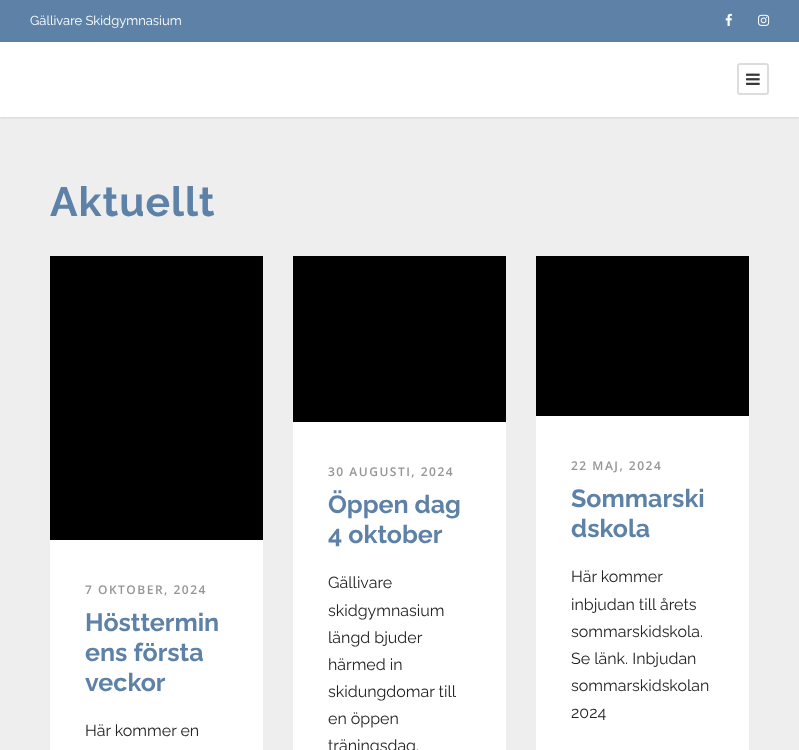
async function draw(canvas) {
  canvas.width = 799
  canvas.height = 750
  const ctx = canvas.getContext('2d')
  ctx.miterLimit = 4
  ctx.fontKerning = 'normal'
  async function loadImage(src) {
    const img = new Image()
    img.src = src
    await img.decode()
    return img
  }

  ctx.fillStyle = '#fff'
  ctx.fillRect(0, 0, 799, 750)
  ctx.fillStyle = '#5e82a7'
  ctx.fillRect(0, 0, 799, 42)
  ctx.font = '13px Raleway'
  ctx.fillStyle = '#fff'
  ctx.fillText('Gällivare Skidgymnasium', 30, 25)
  ctx.drawImage(await loadImage('image0.png'), 725, 13, 7, 13)
  ctx.drawImage(await loadImage('image1.png'), 758, 14, 12, 12)
  ctx.fillStyle = '#eee'
  ctx.fillRect(0, 117, 799, 633)
  ctx.save()
  ctx.beginPath()
  ctx.rect(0, 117, 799, 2)
  ctx.clip()
  ctx.fillStyle = '#0000001a'
  ctx.filter = 'blur(1px)'
  ctx.beginPath()
  ctx.rect(0, 43, 799, 75)
  ctx.fill()
  ctx.filter = 'none'
  ctx.restore()
  ctx.beginPath()
  ctx.roundRect(738, 64, 30, 30, 2)
  ctx.strokeStyle = '#ddd'
  ctx.lineWidth = 2
  ctx.stroke()
  ctx.drawImage(await loadImage('image2.png'), 746, 73, 14, 12)
  ctx.letterSpacing = '1px'
  ctx.font = 'bold 41px Raleway'
  ctx.fillStyle = '#5e82a7'
  ctx.fillText('Aktuellt', 50, 216)
  ctx.fillStyle = '#fff'
  ctx.fillRect(50, 540, 213, 210)
  ctx.fillStyle = '#000'
  ctx.fillRect(50, 256, 213, 284)
  ctx.letterSpacing = '1.5px'
  ctx.font = '600 12px Open Sans'
  ctx.fillStyle = '#959595'
  ctx.fillText('7 OKTOBER, 2024', 85, 594)
  ctx.letterSpacing = '0px'
  ctx.font = 'bold 25px Raleway'
  ctx.fillStyle = '#5e82a7'
  ctx.fillText('Hösttermin', 85, 631)
  ctx.fillText('ens första', 85, 661)
  ctx.fillText('veckor', 85, 691)
  ctx.font = '16px Raleway'
  ctx.fillStyle = '#222'
  ctx.fillText('Här kommer en', 85, 736)
  ctx.fillStyle = '#fff'
  ctx.fillRect(293, 422, 213, 328)
  ctx.fillStyle = '#000'
  ctx.fillRect(293, 256, 213, 166)
  ctx.letterSpacing = '1.5px'
  ctx.font = '600 12px Open Sans'
  ctx.fillStyle = '#959595'
  ctx.fillText('30 AUGUSTI, 2024', 328, 476)
  ctx.letterSpacing = '0px'
  ctx.font = 'bold 25px Raleway'
  ctx.fillStyle = '#5e82a7'
  ctx.fillText('Öppen dag', 328, 513)
  ctx.fillText('4 oktober', 328, 543)
  ctx.font = '16px Raleway'
  ctx.fillStyle = '#222'
  ctx.fillText('Gällivare', 328, 588)
  ctx.fillText('skidgymnasium', 328, 616)
  ctx.fillText('längd bjuder', 328, 643)
  ctx.fillText('härmed in', 328, 670)
  ctx.fillText('skidungdomar till', 328, 697)
  ctx.fillText('en öppen', 328, 724)
  ctx.fillText('träningsdag.', 328, 751)
  ctx.fillStyle = '#fff'
  ctx.fillRect(536, 416, 213, 334)
  ctx.fillStyle = '#000'
  ctx.fillRect(536, 256, 213, 160)
  ctx.letterSpacing = '1.5px'
  ctx.font = '600 12px Open Sans'
  ctx.fillStyle = '#959595'
  ctx.fillText('22 MAJ, 2024', 571, 470)
  ctx.letterSpacing = '0px'
  ctx.font = 'bold 25px Raleway'
  ctx.fillStyle = '#5e82a7'
  ctx.fillText('Sommarski', 571, 507)
  ctx.fillText('dskola', 571, 537)
  ctx.font = '16px Raleway'
  ctx.fillStyle = '#222'
  ctx.fillText('Här kommer', 571, 582)
  ctx.fillText('inbjudan till årets', 571, 610)
  ctx.fillText('sommarskidskola.', 571, 637)
  ctx.fillText('Se länk. Inbjudan', 571, 664)
  ctx.fillText('sommarskidskolan', 571, 691)
  ctx.fillText('2024', 571, 718)
}

draw(document.querySelector('canvas'))
